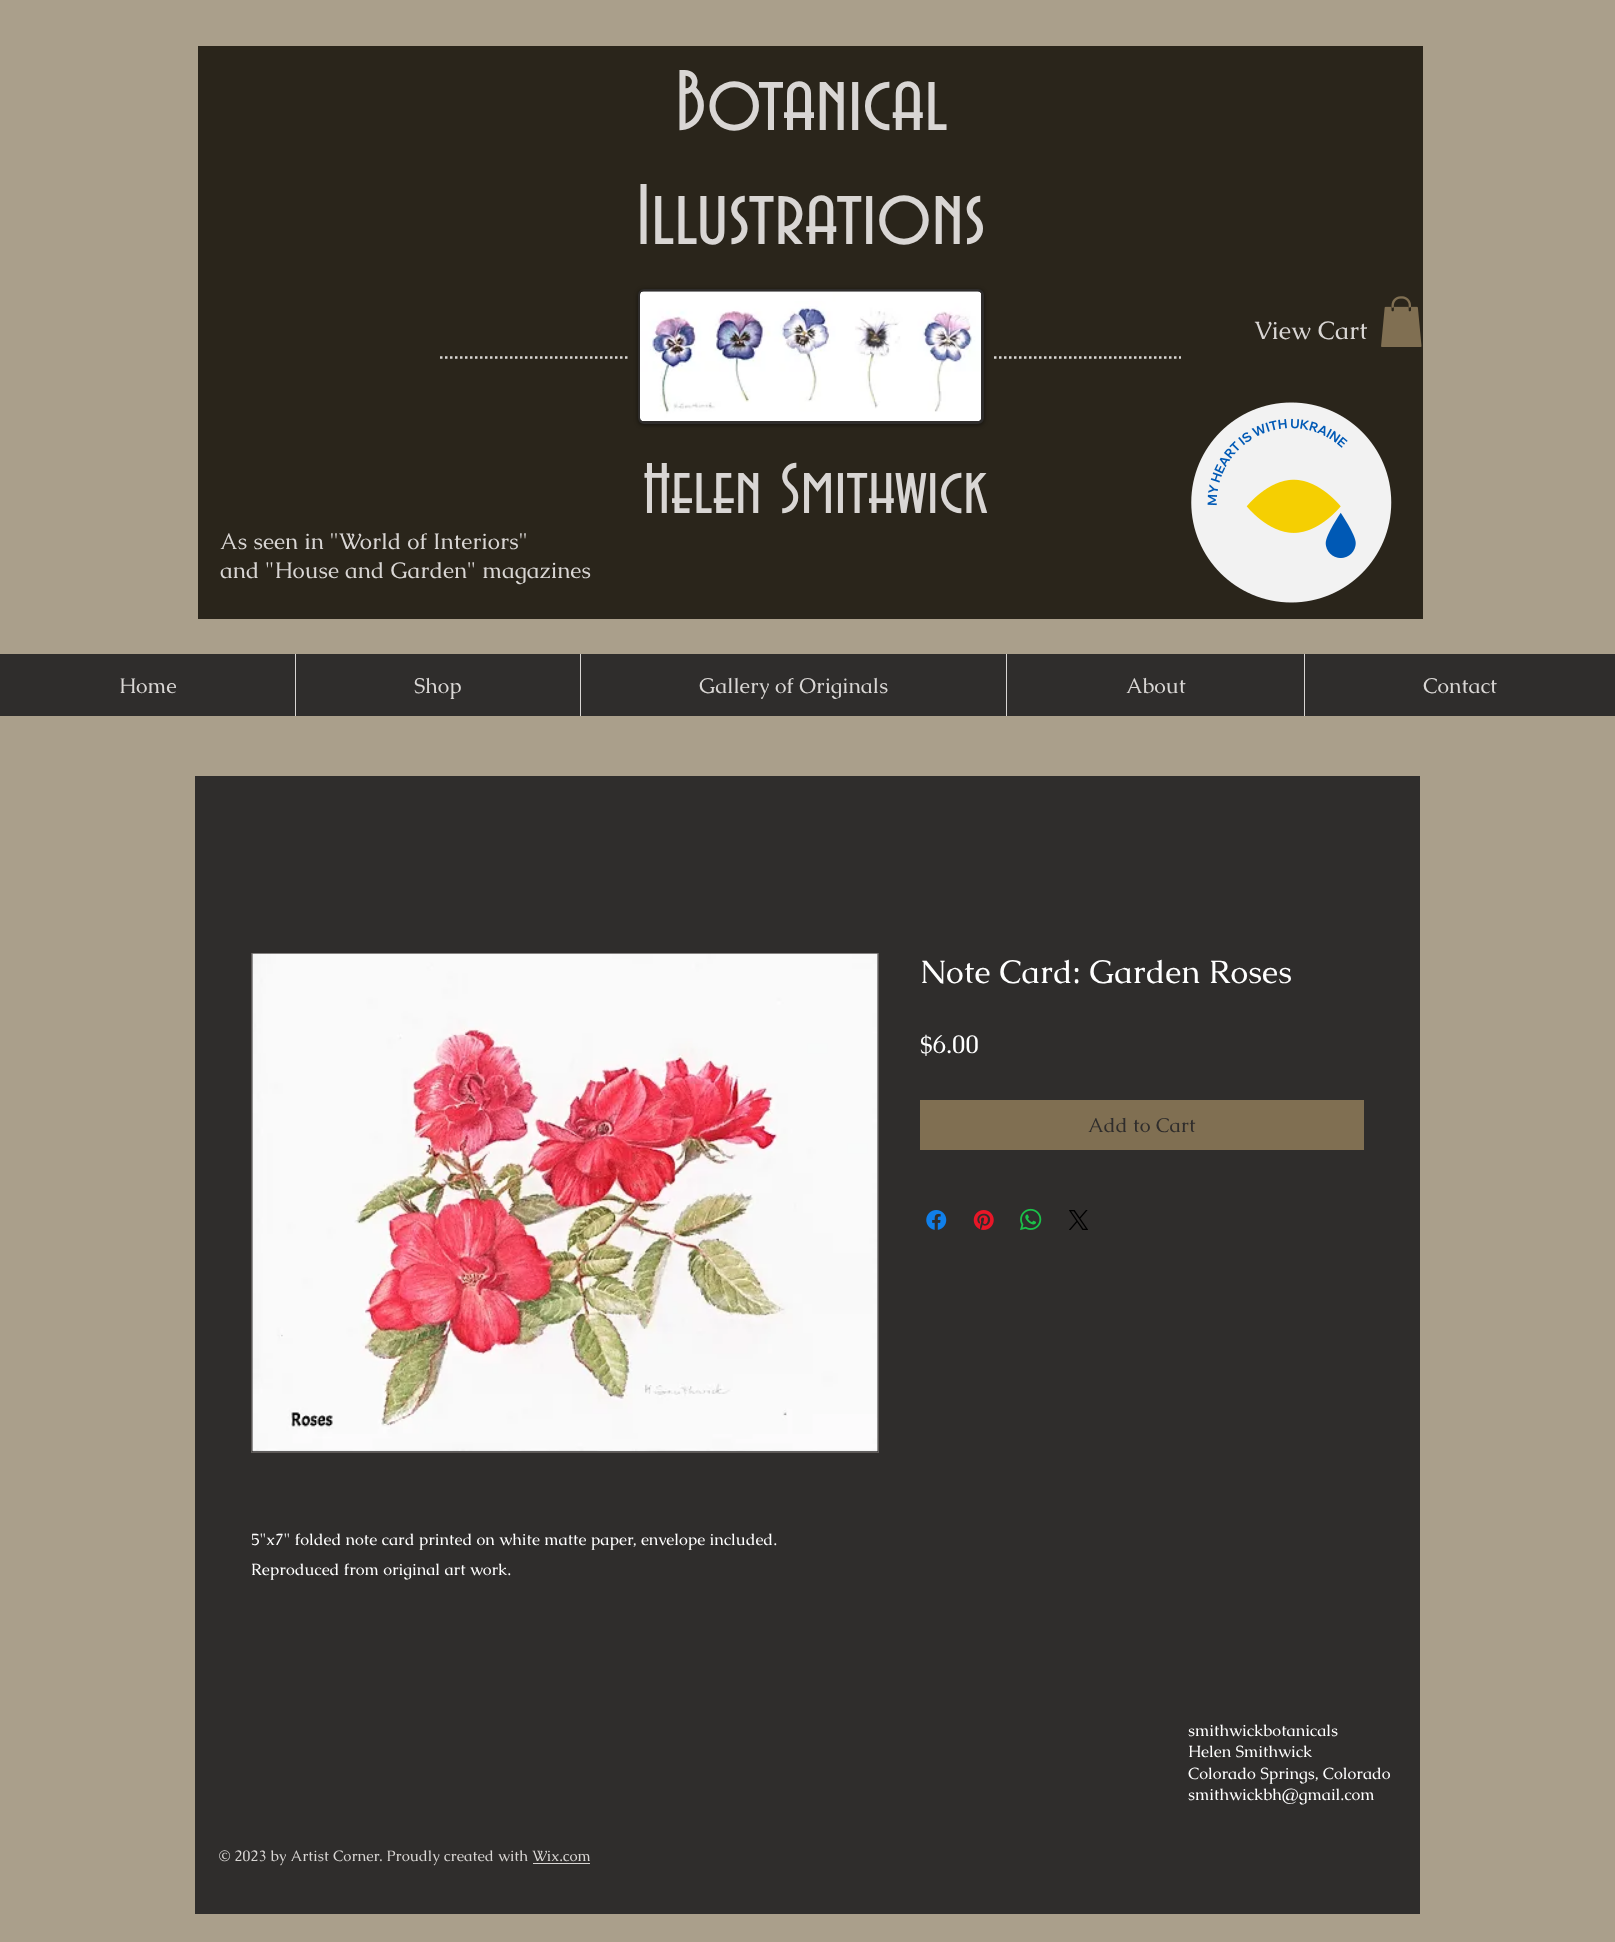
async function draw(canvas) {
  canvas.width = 1615
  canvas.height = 1942
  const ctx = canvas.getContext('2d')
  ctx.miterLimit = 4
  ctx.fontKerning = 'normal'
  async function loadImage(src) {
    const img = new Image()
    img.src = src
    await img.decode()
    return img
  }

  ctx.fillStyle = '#aa9f8b'
  ctx.fillRect(0, 0, 1615, 1942)
  ctx.fillStyle = '#2a251b'
  ctx.fillRect(198, 46, 1225, 573)
  ctx.font = '90px "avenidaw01"'
  ctx.fillStyle = '#d9d6d4'
  ctx.fillText('Botanical', 675, 130)
  ctx.fillText('Illustrations', 636, 244)
  ctx.fillStyle = '#00000080'
  ctx.filter = 'blur(2px)'
  ctx.beginPath()
  ctx.roundRect(638, 290, 346, 135, 6)
  ctx.fill()
  ctx.filter = 'none'
  ctx.beginPath()
  ctx.roundRect(639.5, 290.5, 343, 132, 4.5)
  ctx.strokeStyle = '#2f2d2c'
  ctx.lineWidth = 3
  ctx.stroke()
  ctx.drawImage(await loadImage('image0.png'), 640, 291, 341, 130)
  ctx.font = '25px Caudex'
  ctx.fillStyle = '#d9d6d4'
  ctx.fillText('View Cart', 1254, 339)
  ctx.beginPath()
  ctx.moveTo(440, 357.5)
  ctx.lineTo(627.5, 357.5)
  ctx.strokeStyle = '#d9d6d4'
  ctx.lineWidth = 2.5
  ctx.setLineDash([2.5, 2.5])
  ctx.stroke()
  ctx.beginPath()
  ctx.moveTo(994, 357.5)
  ctx.lineTo(1181, 357.5)
  ctx.stroke()
  ctx.font = '75px "avenidaw01"'
  ctx.fillText('Helen Smithwick', 643, 513)
  ctx.drawImage(await loadImage('image1.png'), 1191, 402, 201, 201)
  ctx.font = '22.5px Caudex'
  ctx.fillText('As seen in "World of Interiors"', 220, 549)
  ctx.fillText('and "House and Garden" magazines', 220, 578)
  ctx.drawImage(await loadImage('image2.png'), 1381, 296, 41, 51)
  ctx.fillStyle = '#2f2d2c'
  ctx.fillRect(0, 654, 1615, 62)
  ctx.font = '21.25px Caudex'
  ctx.fillStyle = '#d9d6d4'
  ctx.fillText('Home', 119, 693)
  ctx.fillRect(295, 654, 1, 62)
  ctx.fillText('Shop', 414, 693)
  ctx.fillRect(580, 654, 1, 62)
  ctx.fillText('Gallery of Originals', 699, 693)
  ctx.fillRect(1006, 654, 1, 62)
  ctx.fillText('About', 1126, 693)
  ctx.fillRect(1304, 654, 1, 62)
  ctx.fillText('Contact', 1423, 693)
  ctx.fillStyle = '#2f2d2c'
  ctx.fillRect(195, 776, 1225, 1138)
  ctx.font = '32.5px Caudex'
  ctx.fillStyle = '#fff'
  ctx.fillText('Note Card: Garden Roses', 920, 983)
  ctx.font = '25px Caudex'
  ctx.fillText('$6.00', 920, 1053)
  ctx.fillStyle = '#806f52'
  ctx.fillRect(920, 1100, 444, 50)
  ctx.font = '20px Caudex'
  ctx.fillStyle = '#2f2d2c'
  ctx.fillText('Add to Cart', 1088, 1132)
  ctx.drawImage(await loadImage('image3.png'), 926, 1210, 21, 20)
  ctx.drawImage(await loadImage('image4.png'), 973, 1210, 21, 20)
  ctx.drawImage(await loadImage('image5.png'), 1020, 1208, 22, 23)
  ctx.drawImage(await loadImage('image6.png'), 1069, 1210, 19, 20)
  ctx.strokeStyle = '#5e5a58'
  ctx.lineWidth = 1
  ctx.setLineDash([])
  ctx.strokeRect(251.5, 953.5, 627, 499)
  ctx.drawImage(await loadImage('image7.png'), 252, 953, 626, 499)
  ctx.font = '16.25px Caudex'
  ctx.fillStyle = '#fff'
  ctx.fillText('5"x7" folded note card printed on white matte paper, envelope included.', 251, 1545)
  ctx.fillText('Reproduced from original art work.', 251, 1575)
  ctx.fillText('smithwickbotanicals', 1188, 1736)
  ctx.fillText('Helen Smithwick', 1188, 1757)
  ctx.fillText('Colorado Springs, Colorado', 1188, 1779)
  ctx.fillText('smithwickbh@gmail.com', 1188, 1800)
  ctx.font = '15px Caudex'
  ctx.fillStyle = '#d9d6d4'
  ctx.fillText('© 2023 by Artist Corner. Proudly created with Wix.com', 219, 1861)
  ctx.fillRect(533, 1863, 57, 1)
}

draw(document.querySelector('canvas'))
